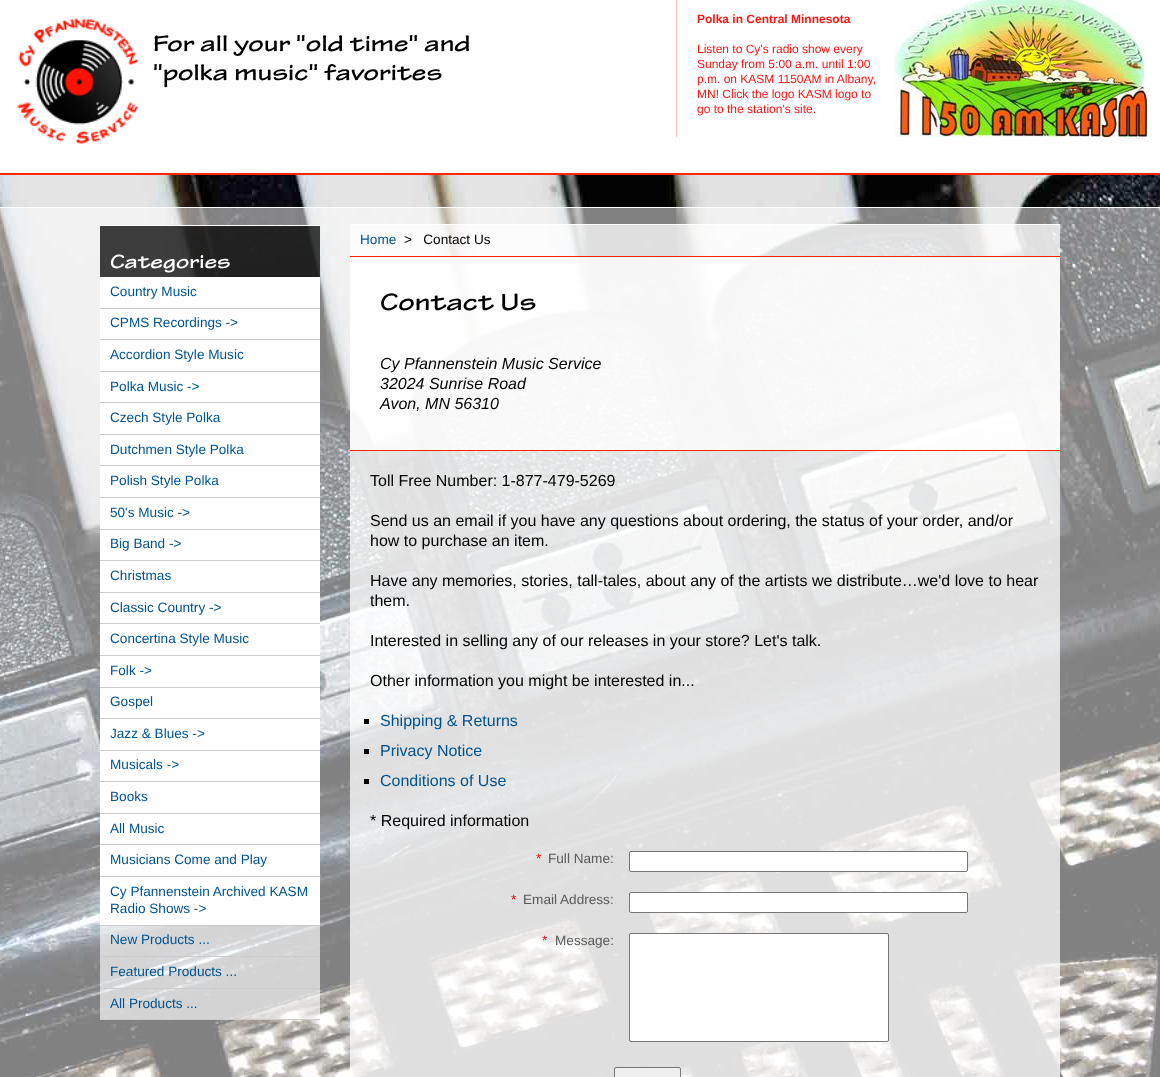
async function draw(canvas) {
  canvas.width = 1160
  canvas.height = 1077
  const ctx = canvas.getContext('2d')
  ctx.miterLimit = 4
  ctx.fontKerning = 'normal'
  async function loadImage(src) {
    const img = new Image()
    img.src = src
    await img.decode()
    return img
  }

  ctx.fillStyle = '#fff'
  ctx.fillRect(0, 0, 1160, 1077)
  ctx.drawImage(await loadImage('image0.png'), 0, 175, 1160, 902)
  ctx.fillStyle = '#ff2500'
  ctx.fillRect(0, 173, 1160, 2)
  ctx.drawImage(await loadImage('image1.png'), 17, 18, 122, 126)
  ctx.font = 'bold 24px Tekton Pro'
  ctx.fillStyle = '#000'
  ctx.fillText('For all your "old time" and', 153, 51)
  ctx.fillText('"polka music" favorites', 153, 80)
  ctx.fillStyle = '#fbbbbb'
  ctx.fillRect(676, 0, 1, 137)
  ctx.font = 'bold 12px Liberation Sans'
  ctx.fillStyle = '#fb1515'
  ctx.fillText('Polka in Central Minnesota', 697, 23)
  ctx.drawImage(await loadImage('image2.png'), 895, 0, 252, 137)
  ctx.font = '12px Liberation Sans'
  ctx.fillText('Listen to Cy\'s radio show every', 697, 53)
  ctx.fillText('Sunday from 5:00 a.m. until 1:00', 697, 68)
  ctx.fillText('p.m. on KASM 1150AM in Albany,', 697, 83)
  ctx.fillText('MN! Click the logo KASM logo to', 697, 98)
  ctx.fillText('go to the station\'s site.', 697, 113)
  ctx.fillStyle = '#ffffff80'
  ctx.fillRect(0, 208, 1160, 869)
  ctx.fillStyle = '#fff'
  ctx.fillRect(0, 207, 1160, 1)
  ctx.fillRect(100, 225, 220, 1)
  ctx.fillStyle = '#000000bf'
  ctx.fillRect(100, 226, 220, 51)
  ctx.font = 'bold 20.5px Tekton Pro'
  ctx.fillStyle = '#fff'
  ctx.fillText('Categories', 110, 268)
  ctx.fillRect(100, 277, 220, 31)
  ctx.fillStyle = '#ccc'
  ctx.fillRect(100, 308, 220, 1)
  ctx.font = '13.6px Liberation Sans'
  ctx.fillStyle = '#005392'
  ctx.fillText('Country Music', 110, 296)
  ctx.fillStyle = '#fff'
  ctx.fillRect(100, 309, 220, 30)
  ctx.fillStyle = '#ccc'
  ctx.fillRect(100, 339, 220, 1)
  ctx.fillStyle = '#005392'
  ctx.fillText('CPMS Recordings ->', 110, 327)
  ctx.fillStyle = '#fff'
  ctx.fillRect(100, 340, 220, 31)
  ctx.fillStyle = '#ccc'
  ctx.fillRect(100, 371, 220, 1)
  ctx.fillStyle = '#005392'
  ctx.fillText('Accordion Style Music', 110, 359)
  ctx.fillStyle = '#fff'
  ctx.fillRect(100, 372, 220, 30)
  ctx.fillStyle = '#ccc'
  ctx.fillRect(100, 402, 220, 1)
  ctx.fillStyle = '#005392'
  ctx.fillText('Polka Music ->', 110, 391)
  ctx.fillStyle = '#fff'
  ctx.fillRect(100, 403, 220, 31)
  ctx.fillStyle = '#ccc'
  ctx.fillRect(100, 434, 220, 1)
  ctx.fillStyle = '#005392'
  ctx.fillText('Czech Style Polka', 110, 422)
  ctx.fillStyle = '#fff'
  ctx.fillRect(100, 435, 220, 30)
  ctx.fillStyle = '#ccc'
  ctx.fillRect(100, 465, 220, 1)
  ctx.fillStyle = '#005392'
  ctx.fillText('Dutchmen Style Polka', 110, 454)
  ctx.fillStyle = '#fff'
  ctx.fillRect(100, 466, 220, 31)
  ctx.fillStyle = '#ccc'
  ctx.fillRect(100, 497, 220, 1)
  ctx.fillStyle = '#005392'
  ctx.fillText('Polish Style Polka', 110, 485)
  ctx.fillStyle = '#fff'
  ctx.fillRect(100, 498, 220, 31)
  ctx.fillStyle = '#ccc'
  ctx.fillRect(100, 529, 220, 1)
  ctx.fillStyle = '#005392'
  ctx.fillText('50\'s Music ->', 110, 517)
  ctx.fillStyle = '#fff'
  ctx.fillRect(100, 530, 220, 30)
  ctx.fillStyle = '#ccc'
  ctx.fillRect(100, 560, 220, 1)
  ctx.fillStyle = '#005392'
  ctx.fillText('Big Band ->', 110, 548)
  ctx.fillStyle = '#fff'
  ctx.fillRect(100, 561, 220, 31)
  ctx.fillStyle = '#ccc'
  ctx.fillRect(100, 592, 220, 1)
  ctx.fillStyle = '#005392'
  ctx.fillText('Christmas', 110, 580)
  ctx.fillStyle = '#fff'
  ctx.fillRect(100, 593, 220, 30)
  ctx.fillStyle = '#ccc'
  ctx.fillRect(100, 623, 220, 1)
  ctx.fillStyle = '#005392'
  ctx.fillText('Classic Country ->', 110, 612)
  ctx.fillStyle = '#fff'
  ctx.fillRect(100, 624, 220, 31)
  ctx.fillStyle = '#ccc'
  ctx.fillRect(100, 655, 220, 1)
  ctx.fillStyle = '#005392'
  ctx.fillText('Concertina Style Music', 110, 643)
  ctx.fillStyle = '#fff'
  ctx.fillRect(100, 656, 220, 31)
  ctx.fillStyle = '#ccc'
  ctx.fillRect(100, 687, 220, 1)
  ctx.fillStyle = '#005392'
  ctx.fillText('Folk ->', 110, 675)
  ctx.fillStyle = '#fff'
  ctx.fillRect(100, 688, 220, 30)
  ctx.fillStyle = '#ccc'
  ctx.fillRect(100, 718, 220, 1)
  ctx.fillStyle = '#005392'
  ctx.fillText('Gospel', 110, 706)
  ctx.fillStyle = '#fff'
  ctx.fillRect(100, 719, 220, 31)
  ctx.fillStyle = '#ccc'
  ctx.fillRect(100, 750, 220, 1)
  ctx.fillStyle = '#005392'
  ctx.fillText('Jazz & Blues ->', 110, 738)
  ctx.fillStyle = '#fff'
  ctx.fillRect(100, 751, 220, 30)
  ctx.fillStyle = '#ccc'
  ctx.fillRect(100, 781, 220, 1)
  ctx.fillStyle = '#005392'
  ctx.fillText('Musicals ->', 110, 769)
  ctx.fillStyle = '#fff'
  ctx.fillRect(100, 782, 220, 31)
  ctx.fillStyle = '#ccc'
  ctx.fillRect(100, 813, 220, 1)
  ctx.fillStyle = '#005392'
  ctx.fillText('Books', 110, 801)
  ctx.fillStyle = '#fff'
  ctx.fillRect(100, 814, 220, 30)
  ctx.fillStyle = '#ccc'
  ctx.fillRect(100, 844, 220, 1)
  ctx.fillStyle = '#005392'
  ctx.fillText('All Music', 110, 833)
  ctx.fillStyle = '#fff'
  ctx.fillRect(100, 845, 220, 31)
  ctx.fillStyle = '#ccc'
  ctx.fillRect(100, 876, 220, 1)
  ctx.fillStyle = '#005392'
  ctx.fillText('Musicians Come and Play', 110, 864)
  ctx.fillStyle = '#fff'
  ctx.fillRect(100, 877, 220, 48)
  ctx.fillStyle = '#ccc'
  ctx.fillRect(100, 925, 220, 1)
  ctx.fillStyle = '#005392'
  ctx.fillText('Cy Pfannenstein Archived KASM', 110, 896)
  ctx.fillText('Radio Shows ->', 110, 913)
  ctx.fillStyle = '#ffffffa6'
  ctx.fillRect(100, 926, 220, 30)
  ctx.fillStyle = '#ccc'
  ctx.fillRect(100, 956, 220, 1)
  ctx.fillStyle = '#005392'
  ctx.fillText('New Products ...', 110, 944)
  ctx.fillStyle = '#ffffffa6'
  ctx.fillRect(100, 957, 220, 31)
  ctx.fillStyle = '#ccc'
  ctx.fillRect(100, 988, 220, 1)
  ctx.fillStyle = '#005392'
  ctx.fillText('Featured Products ...', 110, 976)
  ctx.fillStyle = '#ffffffa6'
  ctx.fillRect(100, 989, 220, 30)
  ctx.fillStyle = '#ccc'
  ctx.fillRect(100, 1019, 220, 1)
  ctx.fillStyle = '#005392'
  ctx.fillText('All Products ...', 110, 1008)
  ctx.fillStyle = '#ffffffbf'
  ctx.fillRect(350, 225, 710, 31)
  ctx.fillStyle = '#fff'
  ctx.fillRect(350, 224, 710, 1)
  ctx.fillStyle = '#005392'
  ctx.fillText('Home', 360, 244)
  ctx.fillStyle = '#000'
  ctx.fillText('>   Contact Us', 404, 244)
  ctx.fillStyle = '#ffffffbf'
  ctx.fillRect(350, 257, 710, 820)
  ctx.fillStyle = '#ff2500'
  ctx.fillRect(350, 256, 710, 1)
  ctx.fillStyle = '#ffffffbf'
  ctx.fillRect(350, 257, 710, 193)
  ctx.fillStyle = '#ff2500'
  ctx.fillRect(350, 450, 710, 1)
  ctx.font = 'bold 25.5px Tekton Pro'
  ctx.fillStyle = '#000'
  ctx.fillText('Contact Us', 380, 310)
  ctx.font = 'italic 16px Liberation Sans'
  ctx.fillText('Cy Pfannenstein Music Service', 380, 369)
  ctx.fillText('32024 Sunrise Road', 380, 389)
  ctx.fillText('Avon, MN 56310', 380, 409)
  ctx.font = '16px Liberation Sans'
  ctx.fillText('Toll Free Number: 1-877-479-5269', 370, 486)
  ctx.fillText('Send us an email if you have any questions about ordering, the status of your order, and/or', 370, 526)
  ctx.fillText('how to purchase an item.', 370, 546)
  ctx.fillText('Have any memories, stories, tall-tales, about any of the artists we distribute…we\'d love to hear', 370, 586)
  ctx.fillText('them.', 370, 606)
  ctx.fillText('Interested in selling any of our releases in your store? Let\'s talk.', 370, 646)
  ctx.fillText('Other information you might be interested in...', 370, 686)
  ctx.fillRect(364, 719, 5, 5)
  ctx.fillStyle = '#005392'
  ctx.fillText('Shipping & Returns', 380, 726)
  ctx.fillStyle = '#000'
  ctx.fillRect(364, 749, 5, 5)
  ctx.fillStyle = '#005392'
  ctx.fillText('Privacy Notice', 380, 756)
  ctx.fillStyle = '#000'
  ctx.fillRect(364, 779, 5, 5)
  ctx.fillStyle = '#005392'
  ctx.fillText('Conditions of Use', 380, 786)
  ctx.fillStyle = '#000'
  ctx.fillText('* Required information', 370, 826)
  ctx.font = '13.6px Liberation Sans'
  ctx.fillStyle = '#f00'
  ctx.fillText('*', 536, 863)
  ctx.fillStyle = '#595a59'
  ctx.fillText('Full Name:', 548, 863)
  ctx.fillStyle = '#fff'
  ctx.beginPath()
  ctx.roundRect(629.5, 851.5, 338, 20, 1.5)
  ctx.fill()
  ctx.strokeStyle = '#767676'
  ctx.stroke()
  ctx.fillStyle = '#f00'
  ctx.fillText('*', 511, 904)
  ctx.fillStyle = '#595a59'
  ctx.fillText('Email Address:', 523, 904)
  ctx.fillStyle = '#fff'
  ctx.beginPath()
  ctx.roundRect(629.5, 892.5, 338, 20, 1.5)
  ctx.fill()
  ctx.stroke()
  ctx.fillStyle = '#f00'
  ctx.fillText('*', 542, 945)
  ctx.fillStyle = '#595a59'
  ctx.fillText('Message:', 555, 945)
  ctx.fillStyle = '#fff'
  ctx.beginPath()
  ctx.roundRect(629.5, 933.5, 259, 108, 1.5)
  ctx.fill()
  ctx.stroke()
  ctx.fillStyle = '#efefef'
  ctx.beginPath()
  ctx.roundRect(614.5, 1067.5, 66, 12, 1.5)
  ctx.fill()
  ctx.stroke()
}

draw(document.querySelector('canvas'))
